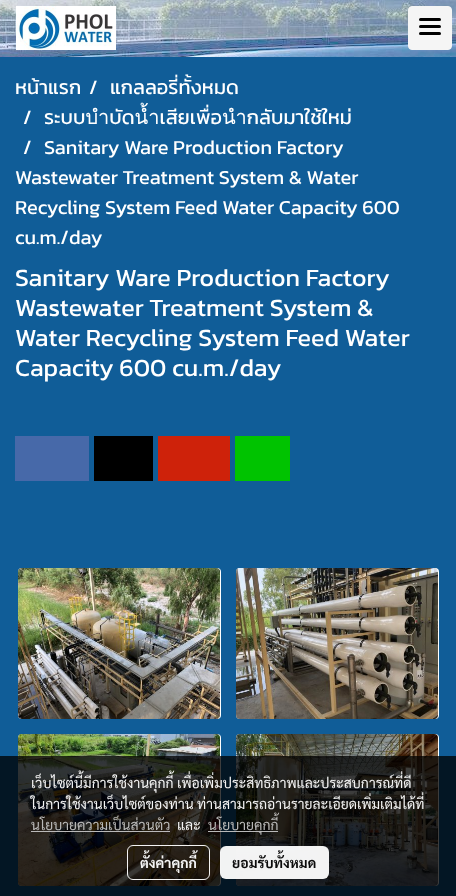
async function draw(canvas) {
  canvas.width = 456
  canvas.height = 896
  const ctx = canvas.getContext('2d')
  ctx.miterLimit = 4
  ctx.fontKerning = 'normal'
  async function loadImage(src) {
    const img = new Image()
    img.src = src
    await img.decode()
    return img
  }

  ctx.fillStyle = '#105d98'
  ctx.fillRect(0, 0, 456, 896)
  ctx.drawImage(await loadImage('image0.png'), 0, 0, 456, 57)
  ctx.drawImage(await loadImage('image1.png'), 16, 6, 100, 44)
  ctx.fillStyle = '#f5f5f5'
  ctx.beginPath()
  ctx.roundRect(408.5, 6.5, 43, 43, 3.5)
  ctx.fill()
  ctx.strokeStyle = '#f5f5f5'
  ctx.stroke()
  ctx.fillStyle = '#000'
  ctx.beginPath()
  ctx.roundRect(419, 25, 22, 3, 1.5)
  ctx.fill()
  ctx.beginPath()
  ctx.roundRect(419, 18, 22, 3, 1.5)
  ctx.fill()
  ctx.beginPath()
  ctx.roundRect(419, 32, 22, 3, 1.5)
  ctx.fill()
  ctx.font = '20px Kanit'
  ctx.fillStyle = '#fff'
  ctx.fillText('หน้าแรก', 15, 94)
  ctx.fillText('/', 89, 94)
  ctx.fillText('แกลลอรี่ทั้งหมด', 110, 94)
  ctx.fillText('/', 23, 124)
  ctx.fillText('ระบบบำบัดน้ำเสียเพื่อนำกลับมาใช้ใหม่', 44, 124)
  ctx.fillText('/', 23, 154)
  ctx.fillText('Sanitary Ware Production Factory', 44, 154)
  ctx.fillText('Wastewater Treatment System & Water', 15, 184)
  ctx.fillText('Recycling System Feed Water Capacity 600', 15, 214)
  ctx.fillText('cu.m./day', 15, 244)
  ctx.font = '25px Kanit'
  ctx.fillText('Sanitary Ware Production Factory', 15, 286)
  ctx.fillText('Wastewater Treatment System &', 15, 316)
  ctx.fillText('Water Recycling System Feed Water', 15, 346)
  ctx.fillText('Capacity 600 cu.m./day', 15, 376)
  ctx.fillStyle = '#4769a9'
  ctx.fillRect(15, 436, 74, 45)
  ctx.fillStyle = '#000'
  ctx.fillRect(94, 436, 59, 45)
  ctx.fillStyle = '#ce220a'
  ctx.fillRect(158, 436, 72, 45)
  ctx.fillStyle = '#00c300'
  ctx.fillRect(235, 436, 55, 45)
  ctx.fillStyle = '#fff'
  ctx.beginPath()
  ctx.roundRect(18, 568, 203, 151, 4)
  ctx.fill()
  ctx.drawImage(await loadImage('image2.png'), 18, 568, 202, 151)
  ctx.beginPath()
  ctx.roundRect(236, 568, 203, 151, 4)
  ctx.fill()
  ctx.drawImage(await loadImage('image3.png'), 236, 568, 202, 151)
  ctx.beginPath()
  ctx.roundRect(18, 734, 203, 152, 4)
  ctx.fill()
  ctx.drawImage(await loadImage('image4.png'), 18, 734, 202, 152)
  ctx.beginPath()
  ctx.roundRect(236, 734, 203, 152, 4)
  ctx.fill()
  ctx.drawImage(await loadImage('image5.png'), 236, 734, 202, 152)
  ctx.fillStyle = '#000000c2'
  ctx.fillRect(0, 756, 456, 140)
  ctx.font = '14px Sarabun'
  ctx.fillStyle = '#f4f4f4'
  ctx.fillText('เว็บไซต์นี้มีการใช้งานคุกกี้ เพื่อเพิ่มประสิทธิภาพและประสบการณ์ที่ดี', 31, 788)
  ctx.fillText('ในการใช้งานเว็บไซต์ของท่าน', 31, 809)
  ctx.fillText('ท่านสามารถอ่านรายละเอียดเพิ่มเติมได้ที่', 197, 809)
  ctx.fillStyle = '#babab9'
  ctx.fillText('นโยบายความเป็นส่วนตัว', 31, 830)
  ctx.fillStyle = '#c2c2c2f2'
  ctx.fillRect(31, 831, 139, 1)
  ctx.fillStyle = '#f4f4f4'
  ctx.fillText('และ', 177, 830)
  ctx.fillStyle = '#c2c2c2f2'
  ctx.fillRect(208, 831, 70, 1)
  ctx.fillStyle = '#babab9'
  ctx.fillText('นโยบายคุกกี้', 208, 830)
  ctx.beginPath()
  ctx.roundRect(127.5, 845.5, 82, 34, 5.5)
  ctx.strokeStyle = '#fffffff2'
  ctx.stroke()
  ctx.font = 'bold 14px Sarabun'
  ctx.fillStyle = '#f4f4f4'
  ctx.fillText('ตั้งค่าคุกกี้', 140, 868)
  ctx.fillStyle = '#fffffff2'
  ctx.beginPath()
  ctx.roundRect(220, 846, 109, 33, 6)
  ctx.fill()
  ctx.fillStyle = '#0c0c0c'
  ctx.fillText('ยอมรับทั้งหมด', 232, 868)
}

draw(document.querySelector('canvas'))
